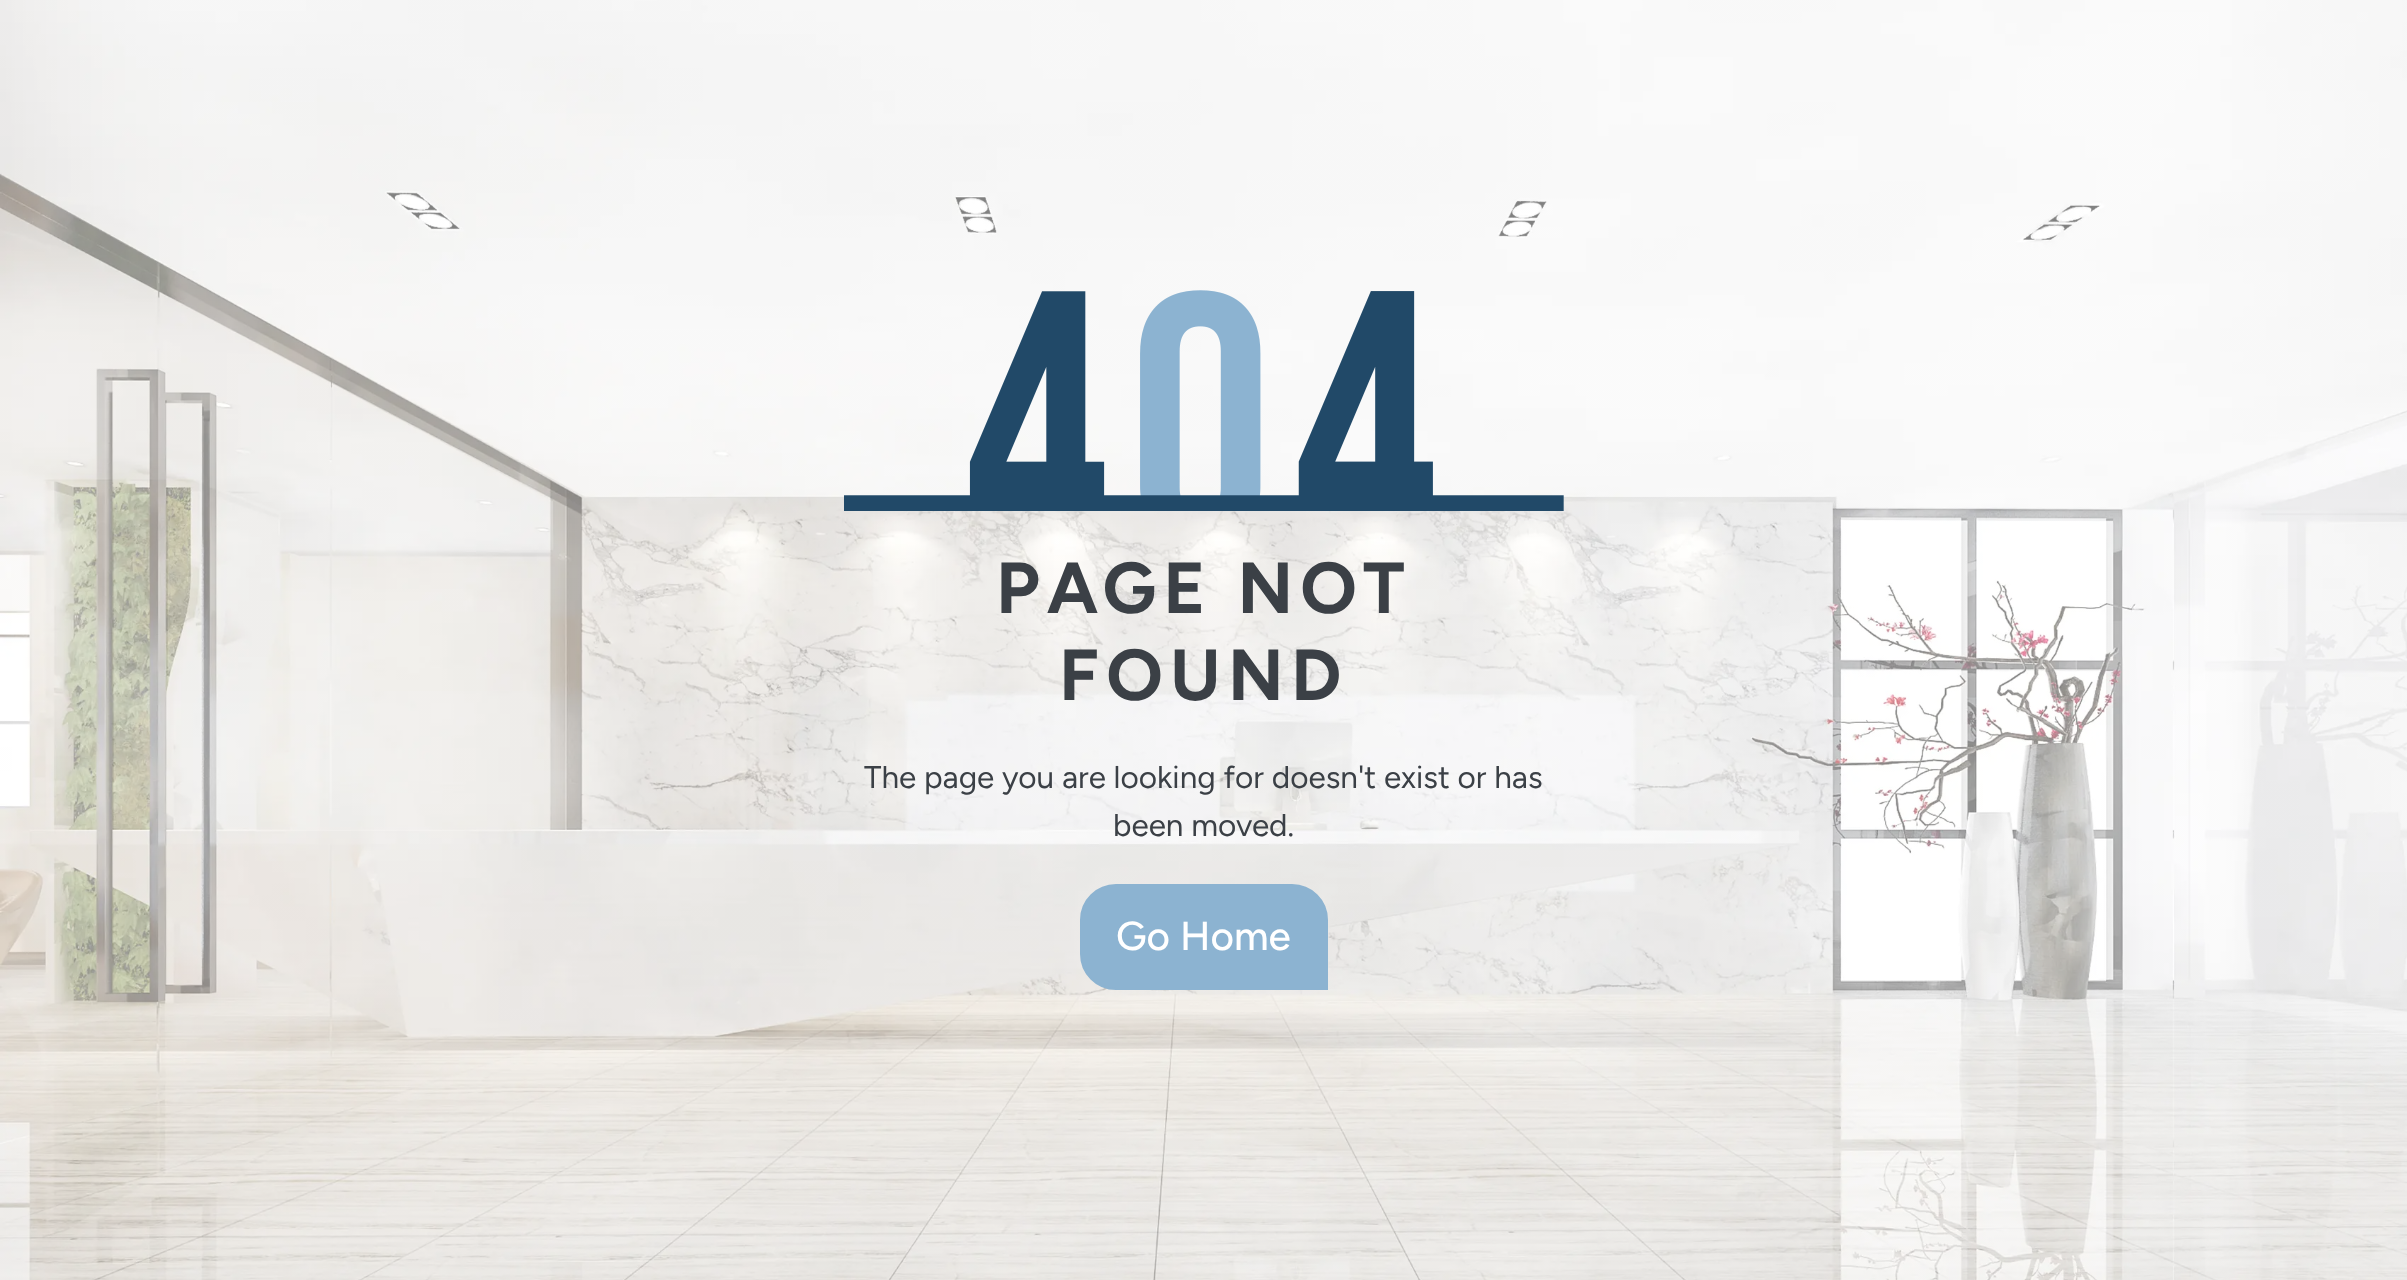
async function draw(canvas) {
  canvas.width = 2407
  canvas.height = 1280
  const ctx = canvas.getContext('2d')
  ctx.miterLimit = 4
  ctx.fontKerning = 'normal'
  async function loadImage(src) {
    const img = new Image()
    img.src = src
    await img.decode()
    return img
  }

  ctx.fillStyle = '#fff'
  ctx.fillRect(0, 0, 2407, 1280)
  ctx.drawImage(await loadImage('image0.png'), 0, 0, 2407, 1280)
  ctx.drawImage(await loadImage('image1.png'), 844, 290, 720, 221)
  ctx.letterSpacing = '7.25px'
  ctx.font = 'bold 72px Figtree'
  ctx.fillStyle = '#3b4046'
  ctx.fillText('PAGE NOT', 996, 613)
  ctx.fillText('FOUND', 1059, 700)
  ctx.letterSpacing = '0px'
  ctx.font = '31.5px Figtree'
  ctx.fillText('The page you are looking for doesn\'t exist or has', 864, 788)
  ctx.fillText('been moved.', 1113, 836)
  ctx.fillStyle = '#8cb3d1'
  ctx.beginPath()
  ctx.roundRect(1081, 885, 246, 104, [35, 35, 0, 35])
  ctx.fill()
  ctx.strokeStyle = '#8cb3d1'
  ctx.lineWidth = 2
  ctx.stroke()
  ctx.font = '500 40.5px Figtree'
  ctx.fillStyle = '#fff'
  ctx.fillText('Go Home', 1116, 950)
}

draw(document.querySelector('canvas'))
